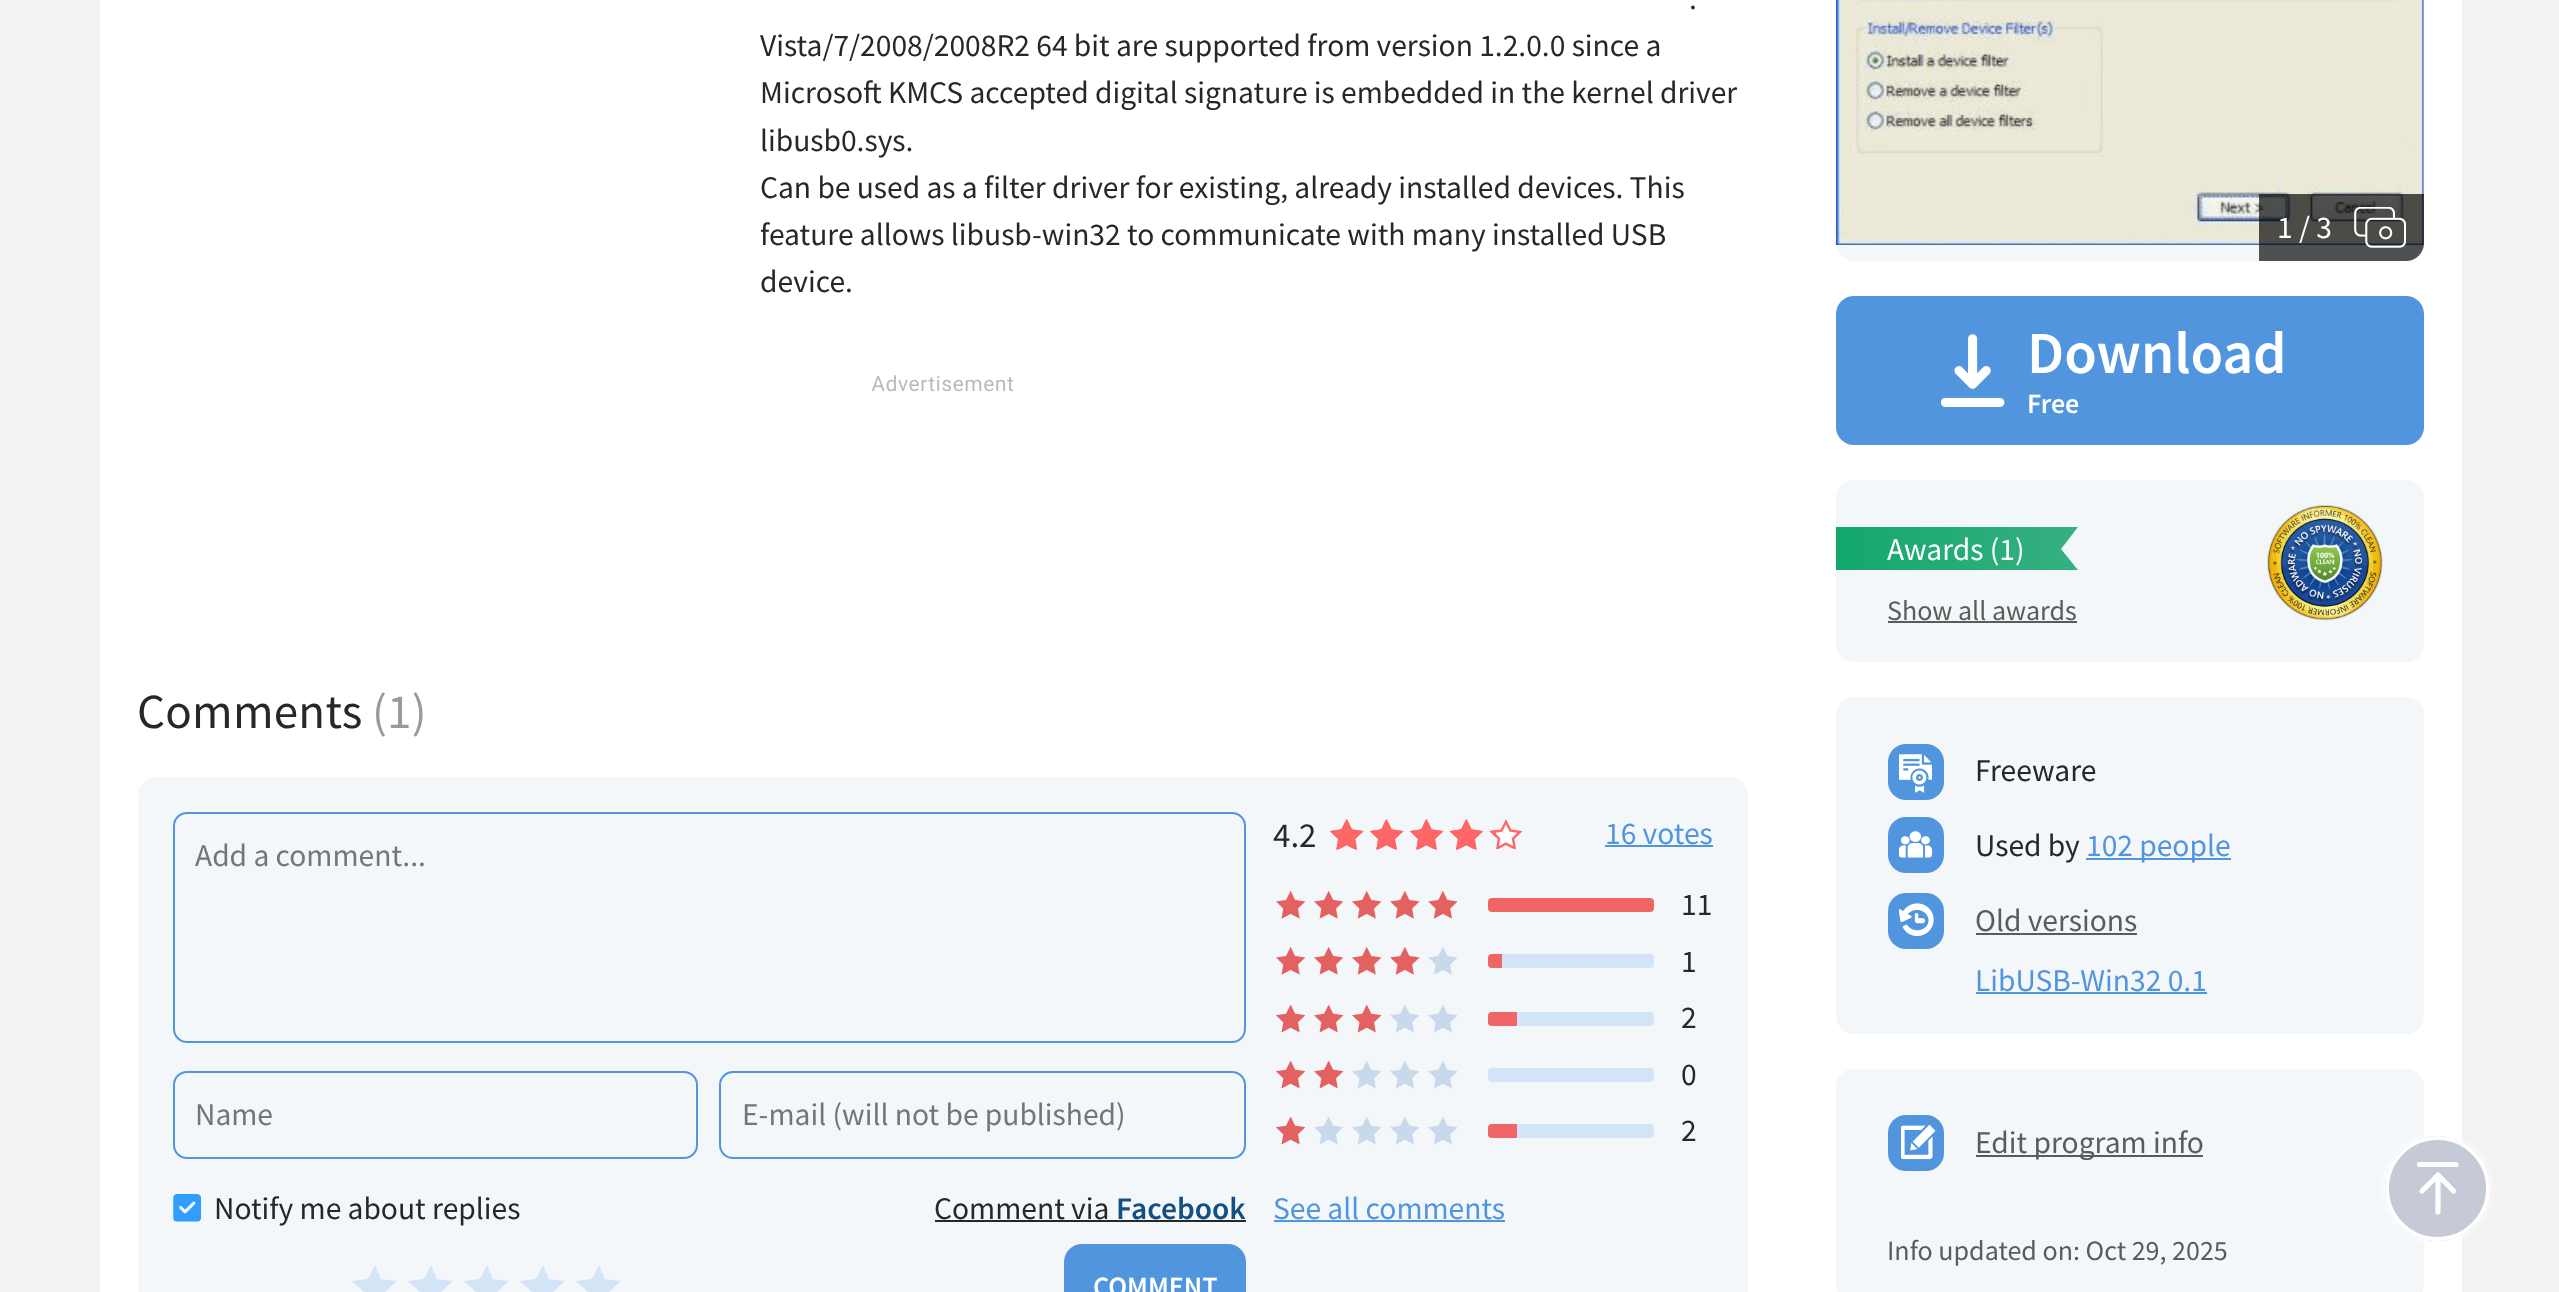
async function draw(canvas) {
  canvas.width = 2559
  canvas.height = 1292
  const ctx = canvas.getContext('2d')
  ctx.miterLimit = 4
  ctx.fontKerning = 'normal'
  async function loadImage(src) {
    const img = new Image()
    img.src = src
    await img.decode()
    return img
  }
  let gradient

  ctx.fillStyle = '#f2f2f2'
  ctx.fillRect(0, 0, 2559, 1292)
  ctx.fillStyle = '#fff'
  ctx.fillRect(100, 0, 2362, 1292)
  ctx.font = '31.5px Source Sans Pro'
  ctx.fillStyle = '#272727'
  ctx.fillText('.', 1689, 9)
  ctx.fillText('Vista/7/2008/2008R2 64 bit are supported from version 1.2.0.0 since a', 760, 56)
  ctx.fillText('Microsoft KMCS accepted digital signature is embedded in the kernel driver', 760, 103)
  ctx.fillText('libusb0.sys.', 760, 151)
  ctx.fillText('Can be used as a filter driver for existing, already installed devices. This', 760, 198)
  ctx.fillText('feature allows libusb-win32 to communicate with many installed USB', 760, 245)
  ctx.fillText('device.', 760, 292)
  ctx.fillStyle = '#f4f7fa'
  ctx.beginPath()
  ctx.roundRect(1836, -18, 588, 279, 18)
  ctx.fill()
  ctx.drawImage(await loadImage('image0.png'), 1835, 0, 589, 245)
  ctx.fillStyle = '#000000ad'
  ctx.beginPath()
  ctx.roundRect(2259, 194, 165, 67, [0, 0, 18, 0])
  ctx.fill()
  ctx.fillStyle = '#fff'
  ctx.fillText('1 / 3', 2277, 238)
  ctx.drawImage(await loadImage('image1.png'), 2354, 207, 52, 41)
  ctx.fillStyle = '#5195de'
  ctx.beginPath()
  ctx.roundRect(1836, 296, 588, 149, 18)
  ctx.fill()
  ctx.drawImage(await loadImage('image2.png'), 1941, 334, 64, 73)
  ctx.font = '600 59.5px Source Sans Pro'
  ctx.fillStyle = '#fff'
  ctx.fillText('Download', 2027, 373)
  ctx.font = '600 28px Source Sans Pro'
  ctx.fillText('Free', 2027, 413)
  ctx.fillStyle = '#f4f7fa'
  ctx.beginPath()
  ctx.roundRect(1836, 480, 588, 182, 18)
  ctx.fill()
  gradient = ctx.createLinearGradient(1836, 549, 2078, 549)
  gradient.addColorStop(0, '#13a86b')
  gradient.addColorStop(1, '#36b082')
  ctx.fillStyle = gradient
  ctx.beginPath()
  ctx.moveTo(2078, 570)
  ctx.lineTo(1836, 570)
  ctx.lineTo(1836, 527)
  ctx.lineTo(2078, 527)
  ctx.lineTo(2061, 549)
  ctx.closePath()
  ctx.fill()
  ctx.font = '31.5px Source Sans Pro'
  ctx.fillStyle = '#fff'
  ctx.fillText('Awards (1)', 1887, 560)
  ctx.drawImage(await loadImage('image3.png'), 2267, 505, 116, 116)
  ctx.font = '28px Source Sans Pro'
  ctx.fillStyle = '#5b5b5b'
  ctx.fillText('Show all awards', 1887, 620)
  ctx.fillRect(1888, 621, 189, 2)
  ctx.fillStyle = '#f4f7fa'
  ctx.beginPath()
  ctx.roundRect(1836, 697, 588, 337, 18)
  ctx.fill()
  ctx.fillStyle = '#5195de'
  ctx.beginPath()
  ctx.roundRect(1888, 744, 56, 56, 18)
  ctx.fill()
  ctx.drawImage(await loadImage('image4.png'), 1899, 754, 33, 39)
  ctx.font = '31.5px Source Sans Pro'
  ctx.fillStyle = '#272727'
  ctx.fillText('Freeware', 1975, 781)
  ctx.fillStyle = '#5195de'
  ctx.beginPath()
  ctx.roundRect(1888, 817, 56, 56, 18)
  ctx.fill()
  ctx.drawImage(await loadImage('image5.png'), 1899, 831, 33, 27)
  ctx.fillStyle = '#272727'
  ctx.fillText('Used by', 1975, 856)
  ctx.fillStyle = '#5195de'
  ctx.fillRect(2086, 858, 145, 2)
  ctx.fillText('102 people', 2086, 856)
  ctx.beginPath()
  ctx.roundRect(1888, 893, 56, 56, 18)
  ctx.fill()
  ctx.drawImage(await loadImage('image6.png'), 1899, 903, 35, 34)
  ctx.fillStyle = '#5b5b5b'
  ctx.fillText('Old versions', 1975, 931)
  ctx.fillRect(1976, 933, 161, 2)
  ctx.fillStyle = '#5195de'
  ctx.fillText('LibUSB-Win32 0.1', 1975, 991)
  ctx.fillRect(1976, 992, 231, 2)
  ctx.fillStyle = '#f4f7fa'
  ctx.beginPath()
  ctx.roundRect(1836, 1069, 588, 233, 18)
  ctx.fill()
  ctx.fillStyle = '#5195de'
  ctx.beginPath()
  ctx.roundRect(1888, 1115, 56, 56, 18)
  ctx.fill()
  ctx.drawImage(await loadImage('image7.png'), 1901, 1124, 35, 36)
  ctx.fillStyle = '#5b5b5b'
  ctx.fillRect(1976, 1155, 227, 2)
  ctx.fillText('Edit program info', 1975, 1153)
  ctx.font = '28px Source Sans Pro'
  ctx.fillText('Info updated on: Oct 29, 2025', 1887, 1260)
  ctx.drawImage(await loadImage('image8.png'), 872, 375, 141, 17)
  ctx.letterSpacing = '0.25px'
  ctx.font = '49px Source Sans Pro'
  ctx.fillStyle = '#272727'
  ctx.fillText('Comments', 137, 728)
  ctx.fillStyle = '#9a9a9a'
  ctx.fillText('(1)', 372, 728)
  ctx.fillStyle = '#f4f7fa'
  ctx.beginPath()
  ctx.roundRect(138, 777, 1610, 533, 18)
  ctx.fill()
  ctx.beginPath()
  ctx.roundRect(174, 813, 1071, 229, 13)
  ctx.strokeStyle = '#5195de'
  ctx.lineWidth = 2
  ctx.stroke()
  ctx.letterSpacing = '0px'
  ctx.font = '31.5px Source Sans Pro'
  ctx.fillStyle = '#757575'
  ctx.fillText('Add a comment...', 195, 866)
  ctx.beginPath()
  ctx.roundRect(174, 1072, 523, 86, 13)
  ctx.stroke()
  ctx.fillText('Name', 195, 1125)
  ctx.beginPath()
  ctx.roundRect(720, 1072, 525, 86, 13)
  ctx.stroke()
  ctx.fillText('E-mail (will not be published)', 742, 1125)
  ctx.drawImage(await loadImage('image9.png'), 173, 1194, 28, 28)
  ctx.fillStyle = '#272727'
  ctx.fillText('Notify me about replies', 214, 1219)
  ctx.fillText('Comment via', 934, 1219)
  ctx.fillRect(935, 1220, 311, 2)
  ctx.font = '600 31.5px Source Sans Pro'
  ctx.fillStyle = '#134f83'
  ctx.fillText('Facebook', 1116, 1219)
  ctx.fillStyle = '#d3e4f7'
  ctx.beginPath()
  ctx.moveTo(388, 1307)
  ctx.lineTo(374, 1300)
  ctx.lineTo(361, 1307)
  ctx.lineTo(364, 1292)
  ctx.lineTo(352, 1281)
  ctx.lineTo(368, 1279)
  ctx.lineTo(375, 1265)
  ctx.lineTo(381, 1279)
  ctx.lineTo(397, 1281)
  ctx.lineTo(385, 1292)
  ctx.closePath()
  ctx.fill('evenodd')
  ctx.beginPath()
  ctx.moveTo(444, 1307)
  ctx.lineTo(430, 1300)
  ctx.lineTo(417, 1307)
  ctx.lineTo(420, 1292)
  ctx.lineTo(408, 1281)
  ctx.lineTo(424, 1279)
  ctx.lineTo(431, 1265)
  ctx.lineTo(437, 1279)
  ctx.lineTo(453, 1281)
  ctx.lineTo(441, 1292)
  ctx.closePath()
  ctx.fill('evenodd')
  ctx.beginPath()
  ctx.moveTo(500, 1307)
  ctx.lineTo(486, 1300)
  ctx.lineTo(473, 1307)
  ctx.lineTo(476, 1292)
  ctx.lineTo(464, 1281)
  ctx.lineTo(480, 1279)
  ctx.lineTo(487, 1265)
  ctx.lineTo(493, 1279)
  ctx.lineTo(509, 1281)
  ctx.lineTo(497, 1292)
  ctx.closePath()
  ctx.fill('evenodd')
  ctx.beginPath()
  ctx.moveTo(556, 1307)
  ctx.lineTo(542, 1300)
  ctx.lineTo(529, 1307)
  ctx.lineTo(532, 1292)
  ctx.lineTo(520, 1281)
  ctx.lineTo(536, 1279)
  ctx.lineTo(543, 1265)
  ctx.lineTo(549, 1279)
  ctx.lineTo(565, 1281)
  ctx.lineTo(553, 1292)
  ctx.closePath()
  ctx.fill('evenodd')
  ctx.beginPath()
  ctx.moveTo(612, 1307)
  ctx.lineTo(598, 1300)
  ctx.lineTo(585, 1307)
  ctx.lineTo(588, 1292)
  ctx.lineTo(576, 1281)
  ctx.lineTo(592, 1279)
  ctx.lineTo(599, 1265)
  ctx.lineTo(605, 1279)
  ctx.lineTo(621, 1281)
  ctx.lineTo(609, 1292)
  ctx.closePath()
  ctx.fill('evenodd')
  ctx.fillStyle = '#5195de'
  ctx.beginPath()
  ctx.roundRect(1064, 1244, 182, 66, 18)
  ctx.fill()
  ctx.font = '600 28px Source Sans Pro'
  ctx.fillStyle = '#fff'
  ctx.fillText('COMMENT', 1093, 1296)
  ctx.font = '35px Source Sans Pro'
  ctx.fillStyle = '#272727'
  ctx.fillText('4.2', 1273, 847)
  ctx.drawImage(await loadImage('image10.png'), 1330, 819, 193, 30)
  ctx.drawImage(await loadImage('image11.png'), 1330, 819, 166, 30)
  ctx.drawImage(await loadImage('image12.png'), 1330, 819, 166, 31)
  ctx.font = '31.5px Source Sans Pro'
  ctx.fillStyle = '#5195de'
  ctx.fillText('16 votes', 1605, 844)
  ctx.fillRect(1605, 845, 108, 2)
  ctx.drawImage(await loadImage('image13.png'), 1276, 891, 182, 28)
  ctx.fillStyle = '#f06666'
  ctx.beginPath()
  ctx.roundRect(1488, 898, 166, 14, 4)
  ctx.fill()
  ctx.fillStyle = '#272727'
  ctx.fillText('11', 1681, 915)
  ctx.drawImage(await loadImage('image14.png'), 1276, 947, 182, 28)
  ctx.fillStyle = '#d3e4f7'
  ctx.beginPath()
  ctx.roundRect(1488, 954, 166, 14, 4)
  ctx.fill()
  ctx.fillStyle = '#f06666'
  ctx.beginPath()
  ctx.roundRect(1488, 954, 14, 14, [4, 0, 0, 4])
  ctx.fill()
  ctx.fillStyle = '#272727'
  ctx.fillText('1', 1681, 972)
  ctx.drawImage(await loadImage('image15.png'), 1276, 1005, 182, 28)
  ctx.fillStyle = '#d3e4f7'
  ctx.beginPath()
  ctx.roundRect(1488, 1012, 166, 14, 4)
  ctx.fill()
  ctx.fillStyle = '#f06666'
  ctx.beginPath()
  ctx.roundRect(1488, 1012, 29, 14, [4, 0, 0, 4])
  ctx.fill()
  ctx.fillStyle = '#272727'
  ctx.fillText('2', 1681, 1028)
  ctx.drawImage(await loadImage('image16.png'), 1276, 1061, 182, 28)
  ctx.fillStyle = '#d3e4f7'
  ctx.beginPath()
  ctx.roundRect(1488, 1068, 166, 14, 4)
  ctx.fill()
  ctx.fillStyle = '#272727'
  ctx.fillText('0', 1681, 1085)
  ctx.drawImage(await loadImage('image17.png'), 1276, 1117, 182, 28)
  ctx.fillStyle = '#d3e4f7'
  ctx.beginPath()
  ctx.roundRect(1488, 1124, 166, 14, 4)
  ctx.fill()
  ctx.fillStyle = '#f06666'
  ctx.beginPath()
  ctx.roundRect(1488, 1124, 29, 14, [4, 0, 0, 4])
  ctx.fill()
  ctx.fillStyle = '#272727'
  ctx.fillText('2', 1681, 1141)
  ctx.fillStyle = '#5195de'
  ctx.fillText('See all comments', 1273, 1219)
  ctx.fillRect(1274, 1220, 231, 2)
  ctx.fillStyle = '#fff'
  ctx.filter = 'blur(4.5px)'
  ctx.beginPath()
  ctx.roundRect(2385, 1136, 105, 105, 52.5)
  ctx.fill()
  ctx.filter = 'none'
  ctx.fillStyle = '#c6c9d6'
  ctx.beginPath()
  ctx.arc(2437.5, 1188.5, 52.5, 0, 2 * Math.PI)
  ctx.fill()
  ctx.beginPath()
  ctx.moveTo(2419.5, 1164.5)
  ctx.lineTo(2456, 1164.5)
  ctx.moveTo(2453.5, 1191)
  ctx.lineTo(2438, 1175)
  ctx.moveTo(2438, 1175)
  ctx.lineTo(2422, 1191)
  ctx.moveTo(2438, 1175)
  ctx.lineTo(2438, 1212)
  ctx.strokeStyle = '#fff'
  ctx.lineWidth = 5.2
  ctx.lineCap = 'round'
  ctx.lineJoin = 'round'
  ctx.stroke()
  ctx.beginPath()
  ctx.arc(2437.5, 1188.5, 50.5, 0, 2 * Math.PI)
  ctx.lineWidth = 4
  ctx.stroke()
}

draw(document.querySelector('canvas'))
